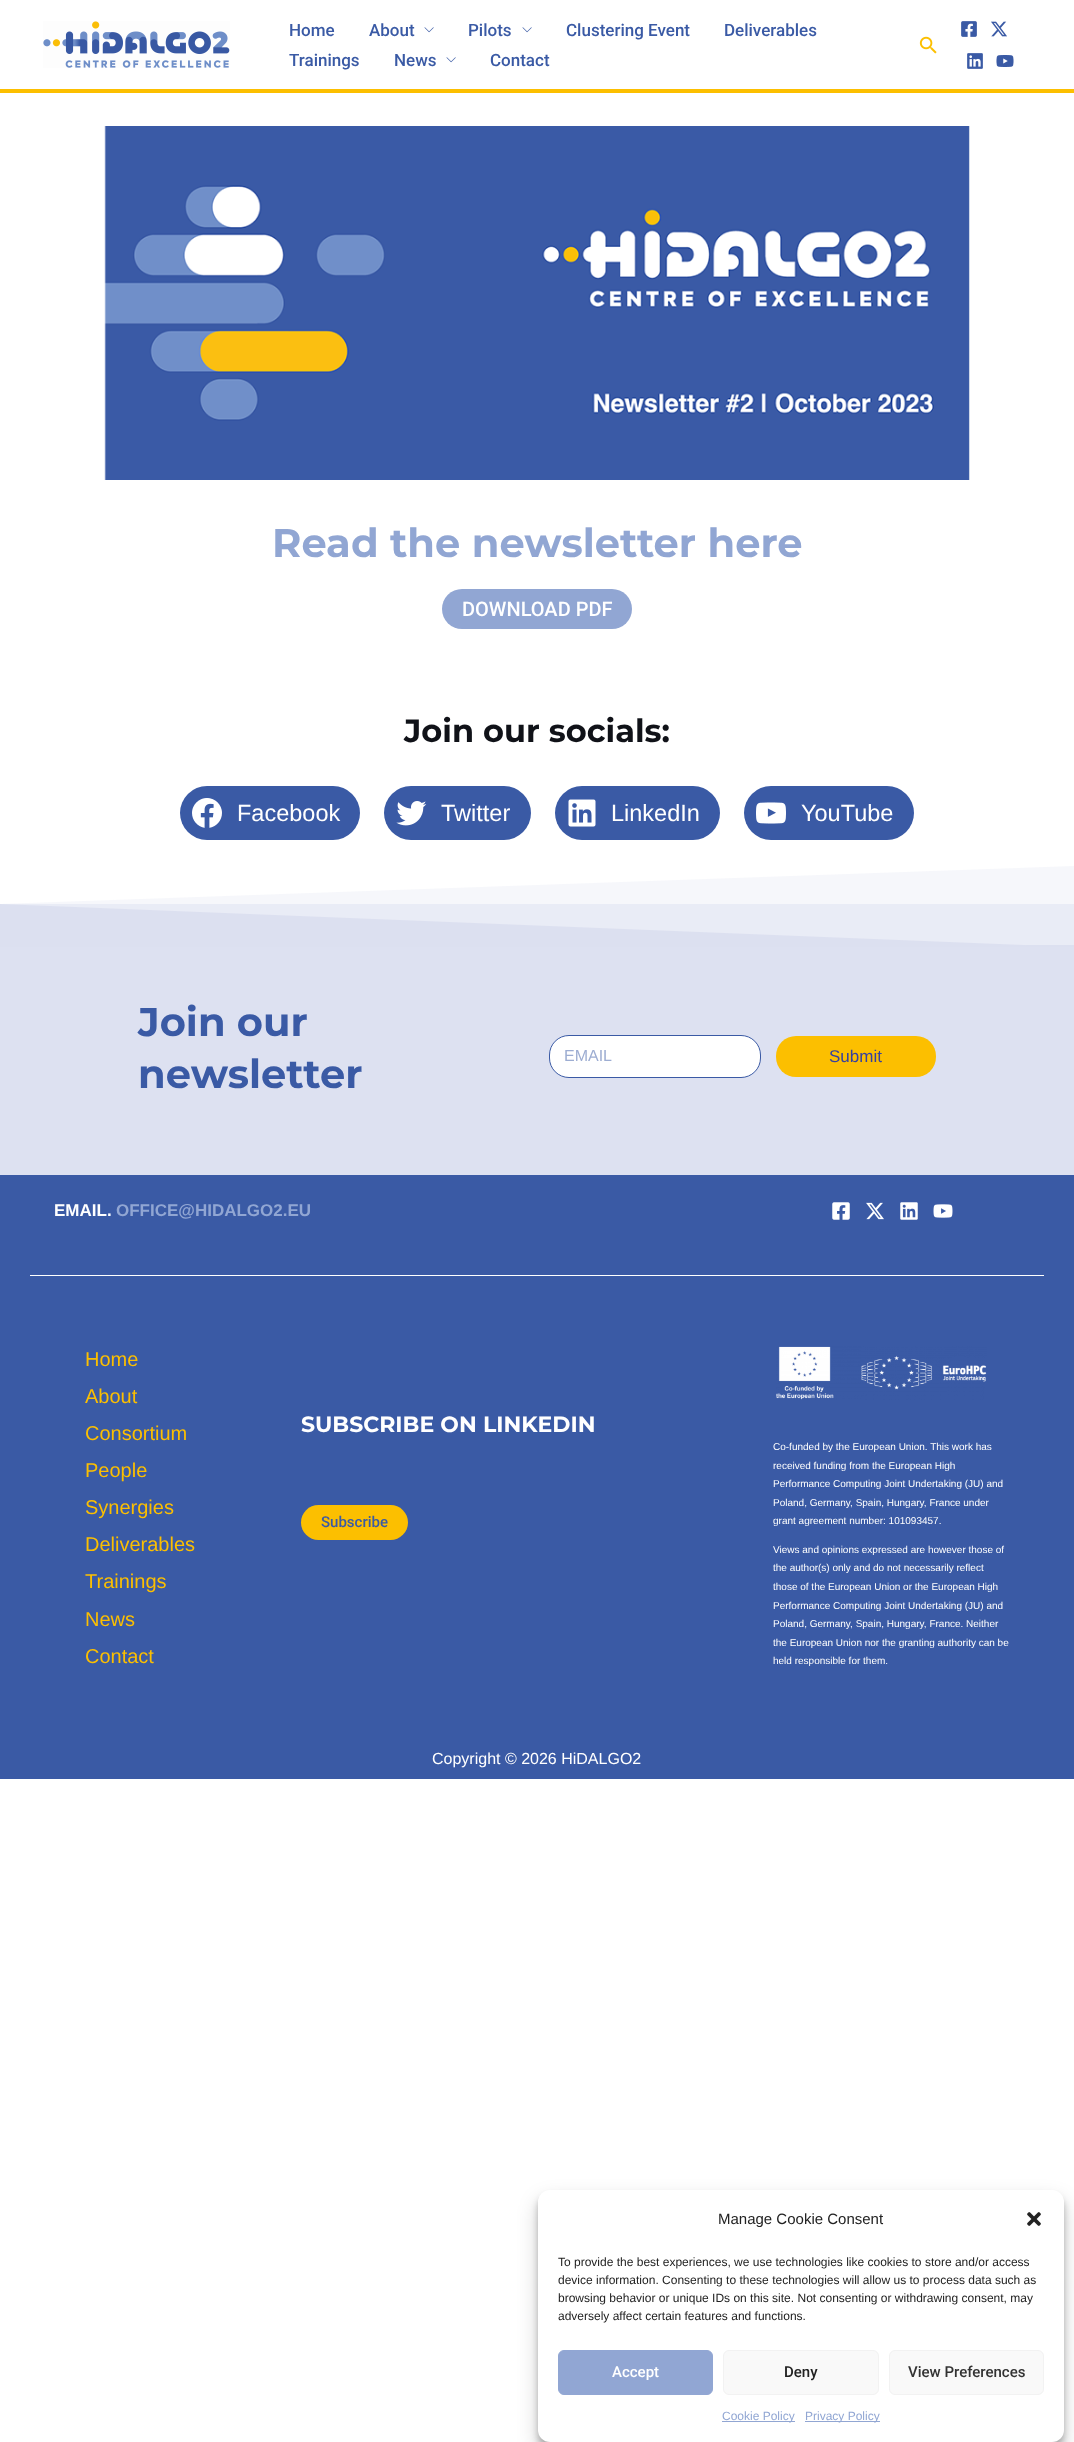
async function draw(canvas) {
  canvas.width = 1074
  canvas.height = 2442
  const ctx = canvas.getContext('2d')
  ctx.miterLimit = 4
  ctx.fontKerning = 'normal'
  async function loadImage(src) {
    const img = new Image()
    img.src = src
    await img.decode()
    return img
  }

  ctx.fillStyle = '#fff'
  ctx.fillRect(0, 0, 1074, 2442)
  ctx.fillStyle = '#eef0f8'
  ctx.fillRect(0, 904, 1074, 41)
  ctx.fillStyle = '#fcbf00'
  ctx.fillRect(0, 89, 1074, 4)
  ctx.drawImage(await loadImage('image0.png'), 43, 21, 187, 47)
  ctx.font = '500 17px Roboto'
  ctx.fillStyle = '#3a5aa5'
  ctx.fillText('Home', 289, 36)
  ctx.fillText('About', 369, 36)
  ctx.drawImage(await loadImage('image1.png'), 424, 27, 10, 6)
  ctx.fillText('Pilots', 468, 36)
  ctx.drawImage(await loadImage('image1.png'), 522, 27, 10, 6)
  ctx.fillText('Clustering Event', 566, 36)
  ctx.fillText('Deliverables', 724, 36)
  ctx.fillText('Trainings', 289, 66)
  ctx.fillText('News', 394, 66)
  ctx.drawImage(await loadImage('image1.png'), 446, 57, 10, 6)
  ctx.fillText('Contact', 490, 66)
  ctx.drawImage(await loadImage('image2.png'), 919, 36, 18, 18)
  ctx.drawImage(await loadImage('image3.png'), 961, 21, 16, 16)
  ctx.drawImage(await loadImage('image4.png'), 991, 21, 16, 16)
  ctx.drawImage(await loadImage('image5.png'), 967, 53, 16, 16)
  ctx.drawImage(await loadImage('image6.png'), 996, 55, 18, 12)
  ctx.drawImage(await loadImage('image7.png'), 104, 126, 866, 354)
  ctx.font = '100 40px Montserrat'
  ctx.fillStyle = '#91a6d3'
  ctx.fillText('Read the newsletter here', 272, 557)
  ctx.beginPath()
  ctx.roundRect(442, 589, 190, 40, 20)
  ctx.fill()
  ctx.font = '500 20px Roboto'
  ctx.fillStyle = '#fff'
  ctx.fillText('DOWNLOAD PDF', 462, 616)
  ctx.font = '100 32px Montserrat'
  ctx.fillStyle = '#101218'
  ctx.fillText('Join our socials:', 404, 742)
  ctx.fillStyle = '#3a5aa5'
  ctx.beginPath()
  ctx.roundRect(180, 786, 180, 54, 27)
  ctx.fill()
  ctx.drawImage(await loadImage('image8.png'), 192, 798, 30, 30)
  ctx.font = '23.5px Liberation Sans'
  ctx.fillStyle = '#fff'
  ctx.fillText('Facebook', 237, 821)
  ctx.fillStyle = '#3a5aa5'
  ctx.beginPath()
  ctx.roundRect(384, 786, 147, 54, 27)
  ctx.fill()
  ctx.drawImage(await loadImage('image9.png'), 396, 801, 31, 25)
  ctx.fillStyle = '#fff'
  ctx.fillText('Twitter', 441, 821)
  ctx.fillStyle = '#3a5aa5'
  ctx.beginPath()
  ctx.roundRect(555, 786, 165, 54, 27)
  ctx.fill()
  ctx.drawImage(await loadImage('image10.png'), 568, 799, 28, 28)
  ctx.fillStyle = '#fff'
  ctx.fillText('LinkedIn', 611, 821)
  ctx.fillStyle = '#3a5aa5'
  ctx.beginPath()
  ctx.roundRect(744, 786, 170, 54, 27)
  ctx.fill()
  ctx.drawImage(await loadImage('image11.png'), 756, 802, 30, 22)
  ctx.fillStyle = '#fff'
  ctx.fillText('YouTube', 801, 821)
  ctx.fillStyle = '#dde1f1'
  ctx.fillRect(1026, 945, 48, 2)
  ctx.beginPath()
  ctx.moveTo(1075, 947)
  ctx.lineTo(-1, 947)
  ctx.lineTo(-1, 904)
  ctx.closePath()
  ctx.fill()
  ctx.fillStyle = '#dde1f140'
  ctx.beginPath()
  ctx.moveTo(-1, 947)
  ctx.lineTo(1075, 947)
  ctx.lineTo(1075, 866)
  ctx.lineTo(-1, 904)
  ctx.closePath()
  ctx.fill()
  ctx.fillStyle = '#dde1f1'
  ctx.fillRect(0, 947, 1074, 228)
  ctx.font = '100 40px Montserrat'
  ctx.fillStyle = '#3a5aa5'
  ctx.fillText('Join our', 138, 1036)
  ctx.fillText('newsletter', 138, 1088)
  ctx.fillStyle = '#fff'
  ctx.beginPath()
  ctx.roundRect(549.5, 1035.5, 211, 42, 19.5)
  ctx.fill()
  ctx.strokeStyle = '#3a5aa5'
  ctx.stroke()
  ctx.font = '16px Liberation Sans'
  ctx.fillStyle = '#9dadd2'
  ctx.fillText('EMAIL', 564, 1061)
  ctx.fillStyle = '#fcbf00'
  ctx.beginPath()
  ctx.roundRect(776, 1036, 160, 41, 20)
  ctx.fill()
  ctx.font = '17px Liberation Sans'
  ctx.fillStyle = '#3540a1'
  ctx.fillText('Submit', 829, 1062)
  ctx.fillStyle = '#3a5aa5'
  ctx.fillRect(0, 1175, 1074, 604)
  ctx.font = 'bold 17px Liberation Sans'
  ctx.fillStyle = '#fff'
  ctx.fillText('EMAIL.', 54, 1216)
  ctx.fillStyle = '#91a6d3'
  ctx.fillText('OFFICE@HIDALGO2.EU', 116, 1216)
  ctx.drawImage(await loadImage('image12.png'), 832, 1202, 18, 18)
  ctx.drawImage(await loadImage('image13.png'), 866, 1202, 18, 18)
  ctx.drawImage(await loadImage('image14.png'), 900, 1202, 18, 18)
  ctx.drawImage(await loadImage('image15.png'), 933, 1204, 20, 14)
  ctx.fillStyle = '#fff'
  ctx.fillRect(30, 1275, 1014, 1)
  ctx.font = '20px Liberation Sans'
  ctx.fillStyle = '#fcbf00'
  ctx.fillText('Home', 85, 1366)
  ctx.fillText('About', 85, 1403)
  ctx.fillText('Consortium', 85, 1440)
  ctx.fillText('People', 85, 1477)
  ctx.fillText('Synergies', 85, 1514)
  ctx.fillText('Deliverables', 85, 1551)
  ctx.fillText('Trainings', 85, 1588)
  ctx.fillText('News', 85, 1626)
  ctx.fillText('Contact', 85, 1663)
  ctx.font = '100 22px Montserrat'
  ctx.fillStyle = '#fff'
  ctx.fillText('SUBSCRIBE ON LINKEDIN', 301, 1432)
  ctx.fillStyle = '#fcbf00'
  ctx.beginPath()
  ctx.roundRect(301, 1505, 107, 35, 17.5)
  ctx.fill()
  ctx.font = '500 15px Roboto'
  ctx.fillStyle = '#3a5aa5'
  ctx.fillText('Subscribe', 321, 1527)
  ctx.drawImage(await loadImage('image16.png'), 776, 1346, 211, 54)
  ctx.font = '10px Liberation Sans'
  ctx.fillStyle = '#fff'
  ctx.fillText('Co-funded by the European Union. This work has', 773, 1450)
  ctx.fillText('received funding from the European High', 773, 1469)
  ctx.fillText('Performance Computing Joint Undertaking (JU) and', 773, 1487)
  ctx.fillText('Poland, Germany, Spain, Hungary, France under', 773, 1506)
  ctx.fillText('grant agreement number: 101093457.', 773, 1524)
  ctx.fillText('Views and opinions expressed are however those of', 773, 1553)
  ctx.fillText('the author(s) only and do not necessarily reflect', 773, 1571)
  ctx.fillText('those of the European Union or the European High', 773, 1590)
  ctx.fillText('Performance Computing Joint Undertaking (JU) and', 773, 1609)
  ctx.fillText('Poland, Germany, Spain, Hungary, France. Neither', 773, 1627)
  ctx.fillText('the European Union nor the granting authority can be', 773, 1646)
  ctx.fillText('held responsible for them.', 773, 1664)
  ctx.font = '16px Liberation Sans'
  ctx.fillText('Copyright © 2026 HiDALGO2', 432, 1764)
  ctx.fillStyle = '#0000003b'
  ctx.filter = 'blur(3px)'
  ctx.beginPath()
  ctx.roundRect(538, 2196, 526, 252, 12)
  ctx.fill()
  ctx.filter = 'none'
  ctx.fillStyle = '#00000030'
  ctx.filter = 'blur(10px)'
  ctx.beginPath()
  ctx.roundRect(538, 2200, 526, 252, 12)
  ctx.fill()
  ctx.filter = 'none'
  ctx.fillStyle = '#fff'
  ctx.beginPath()
  ctx.roundRect(538, 2190, 526, 252, 12)
  ctx.fill()
  ctx.font = '15px Liberation Sans'
  ctx.fillStyle = '#222'
  ctx.fillText('Manage Cookie Consent', 718, 2224)
  ctx.drawImage(await loadImage('image17.png'), 1027, 2212, 14, 14)
  ctx.font = '12px Liberation Sans'
  ctx.fillText('To provide the best experiences, we use technologies like cookies to store and/or access', 558, 2266)
  ctx.fillText('device information. Consenting to these technologies will allow us to process data such as', 558, 2284)
  ctx.fillText('browsing behavior or unique IDs on this site. Not consenting or withdrawing consent, may', 558, 2302)
  ctx.fillText('adversely affect certain features and functions.', 558, 2320)
  ctx.fillStyle = '#91a6d3'
  ctx.beginPath()
  ctx.roundRect(558.5, 2350.5, 154, 44, 5.5)
  ctx.fill()
  ctx.strokeStyle = '#91a6d3'
  ctx.stroke()
  ctx.font = '500 15px Roboto'
  ctx.fillStyle = '#fff'
  ctx.fillText('Accept', 612, 2377)
  ctx.fillStyle = '#f9f9f9'
  ctx.beginPath()
  ctx.roundRect(723.5, 2350.5, 155, 44, 5.5)
  ctx.fill()
  ctx.strokeStyle = '#f2f2f2'
  ctx.stroke()
  ctx.fillStyle = '#222'
  ctx.fillText('Deny', 784, 2377)
  ctx.fillStyle = '#f9f9f9'
  ctx.beginPath()
  ctx.roundRect(889.5, 2350.5, 154, 44, 5.5)
  ctx.fill()
  ctx.stroke()
  ctx.fillStyle = '#333'
  ctx.fillText('View Preferences', 908, 2377)
  ctx.fillStyle = '#91a6d3'
  ctx.fillRect(722, 2421, 73, 1)
  ctx.font = '12px Liberation Sans'
  ctx.fillText('Cookie Policy', 722, 2420)
  ctx.fillRect(805, 2421, 75, 1)
  ctx.fillText('Privacy Policy', 805, 2420)
}

draw(document.querySelector('canvas'))
